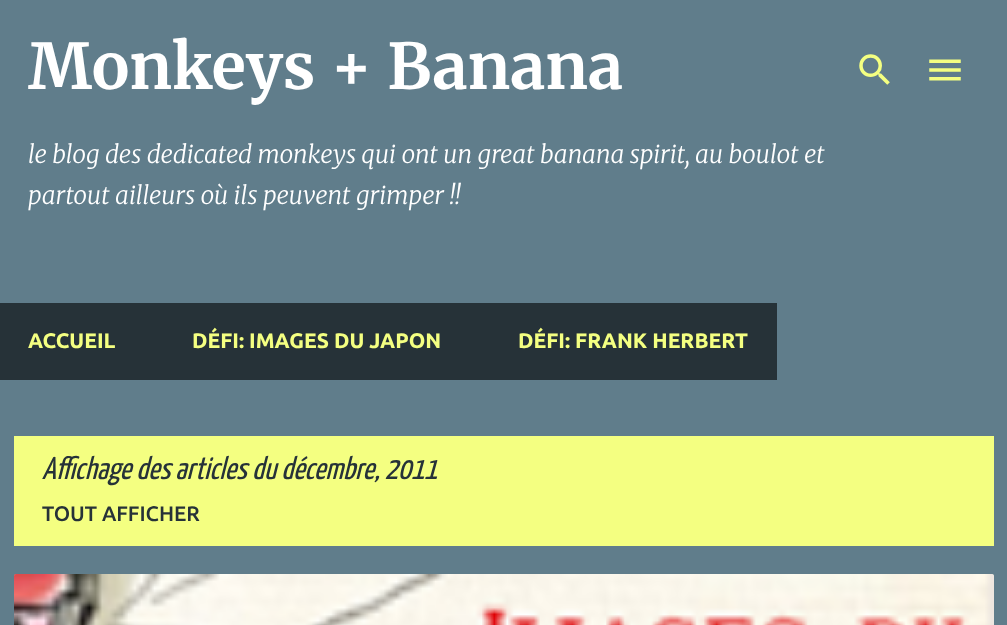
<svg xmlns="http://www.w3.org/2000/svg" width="1007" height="625">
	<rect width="100%" height="100%" fill="#607D8B" />
	<text x="28" y="89" font-family="Merriweather" font-size="63" font-weight="700" fill="#FFFFFF">Monkeys + Banana</text>
	<g font-family="Merriweather" font-size="24.5" font-weight="300" font-style="italic" fill="#FFFFFF">
		<text x="28" y="163">le blog des dedicated monkeys qui ont un great banana spirit, au boulot et</text>
		<text x="28" y="204">partout ailleurs où ils peuvent grimper !!</text>
	</g>
	<image x="859" y="54" width="31" height="31" href="assets/img1.png" />
	<image x="929" y="59" width="32" height="22" href="assets/img2.png" />
	<rect x="0" y="303" width="777" height="77" fill="#263238" />
	<g font-family="Ubuntu" font-size="21" font-weight="700" fill="#F4FF81">
		<text x="28" y="348">ACCUEIL</text>
		<text x="192" y="348">DÉFI: IMAGES DU JAPON</text>
		<text x="518" y="348">DÉFI: FRANK HERBERT</text>
	</g>
	<rect x="14" y="436" width="980" height="110" fill="#F4FF81" />
	<text x="42" y="479" font-family="Yanone Kaffeesatz" font-size="31.5" font-weight="200" font-style="italic" fill="#263238">Affichage des articles du décembre, 2011</text>
	<text x="42" y="521" font-family="Ubuntu" font-size="21" font-weight="500" fill="#263238">TOUT AFFICHER</text>
	<path d="M16 574H992C993 574 994 575 994 576V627H14V576C14 575 15 574 16 574Z" fill="#D9CDC7" />
	<image x="14" y="574" width="980" height="51" href="assets/img3.png" />
</svg>
